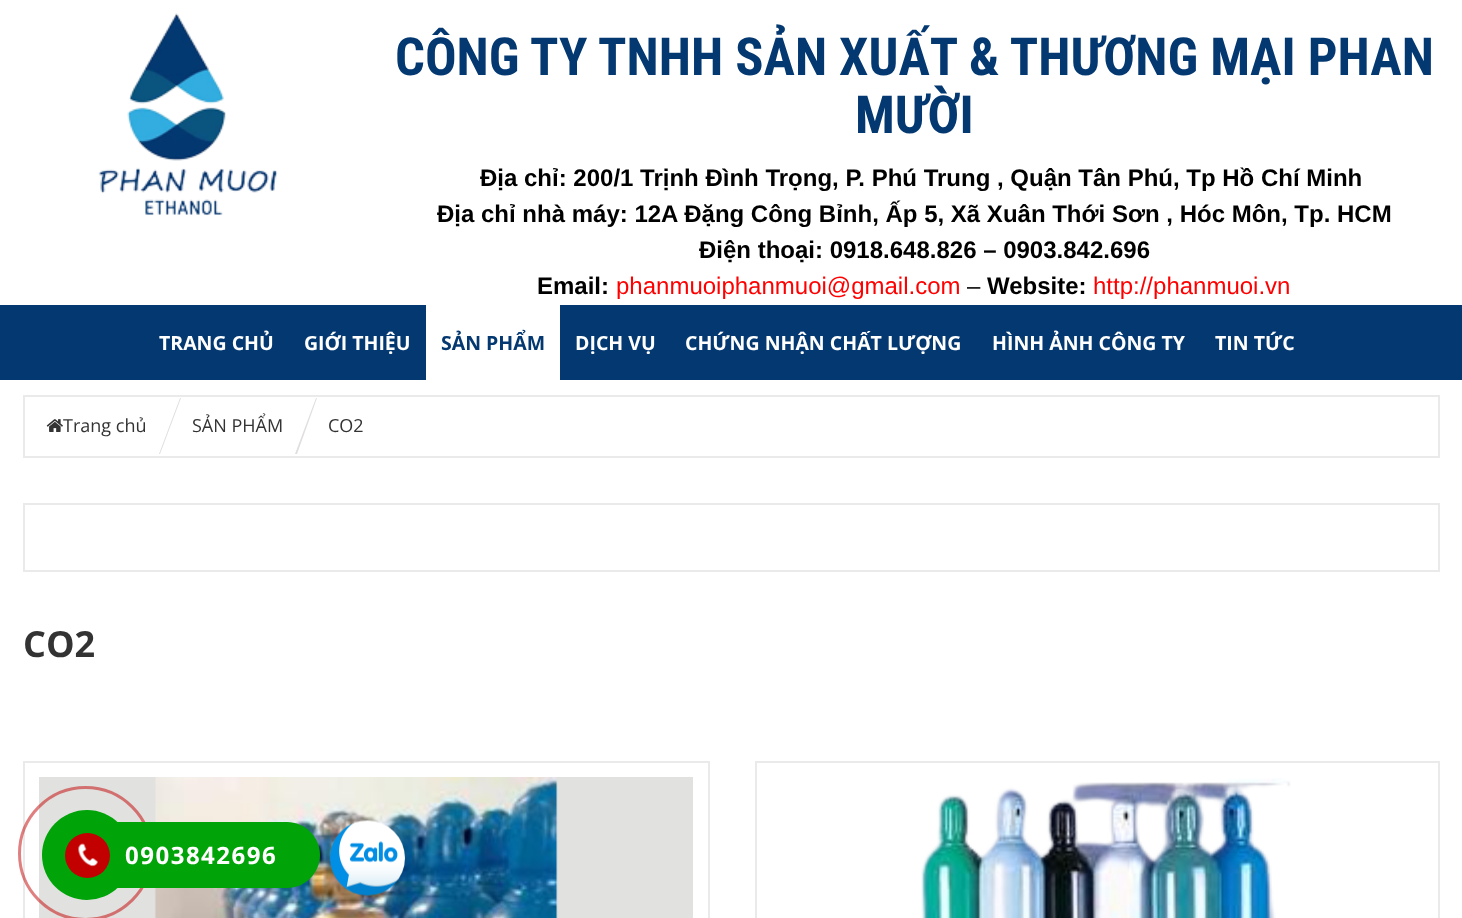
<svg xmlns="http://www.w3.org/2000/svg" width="1462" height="918">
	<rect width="100%" height="100%" fill="#FFFFFF" />
	<image x="98" y="13" width="180" height="203" href="assets/img1.png" />
	<g font-family="Roboto Condensed" font-size="52.5" font-weight="700" fill="#043871">
		<text x="395" y="75">CÔNG TY TNHH SẢN XUẤT &amp; THƯƠNG MẠI PHAN</text>
		<text x="855" y="133">MƯỜI</text>
	</g>
	<g font-family="Liberation Sans" font-size="24" font-weight="700" fill="#000000">
		<text x="480" y="186">Địa chỉ: 200/1 Trịnh Đình Trọng, P. Phú Trung , Quận Tân Phú, Tp Hồ Chí Minh</text>
		<text x="437" y="222">Địa chỉ nhà máy: 12A Đặng Công Bỉnh, Ấp 5, Xã Xuân Thới Sơn , Hóc Môn, Tp. HCM</text>
		<text x="699" y="258">Điện thoại: 0918.648.826 – 0903.842.696</text>
		<text x="537" y="294">Email:</text>
	</g>
	<text x="616" y="294" font-family="Liberation Sans" font-size="24" fill="#FF0000">phanmuoiphanmuoi@gmail.com</text>
	<text x="967" y="294" font-family="Liberation Sans" font-size="24" fill="#000000">–</text>
	<text x="987" y="294" font-family="Liberation Sans" font-size="24" font-weight="700" fill="#000000">Website:</text>
	<text x="1093" y="294" font-family="Liberation Sans" font-size="24" fill="#FF0000">http://phanmuoi.vn</text>
	<rect x="0" y="305" width="1462" height="75" fill="#043871" />
	<g font-family="Open Sans" font-size="19.5" font-weight="700" fill="#FFFFFF">
		<text x="159" y="350">TRANG CHỦ</text>
		<text x="304" y="350">GIỚI THIỆU</text>
	</g>
	<rect x="426" y="305" width="134" height="75" fill="#FFFFFF" />
	<text x="441" y="350" font-family="Open Sans" font-size="19.5" font-weight="700" fill="#043871">SẢN PHẨM</text>
	<g font-family="Open Sans" font-size="19.5" font-weight="700" fill="#FFFFFF">
		<text x="575" y="350">DỊCH VỤ</text>
		<text x="685" y="350">CHỨNG NHẬN CHẤT LƯỢNG</text>
		<text x="992" y="350">HÌNH ẢNH CÔNG TY</text>
		<text x="1215" y="350">TIN TỨC</text>
	</g>
	<rect x="24" y="396" width="1415" height="61" fill="none" stroke="#EAEAEA" stroke-width="2" />
	<image x="46" y="419" width="17" height="13" href="assets/img2.png" />
	<text x="63" y="432" font-family="Open Sans" font-size="18" fill="#333333">Trang chủ</text>
	<path d="M180 398H181L160 454H159Z" fill="#E0DEDE" />
	<text x="192" y="432" font-family="Open Sans" font-size="18" fill="#333333">SẢN PHẨM</text>
	<path d="M316 398H317L297 454H295Z" fill="#E0DEDE" />
	<text x="328" y="432" font-family="Open Sans" font-size="18" fill="#333333">CO2</text>
	<rect x="24" y="504" width="1415" height="67" fill="none" stroke="#EAEAEA" stroke-width="2" />
	<text x="23" y="657" font-family="Open Sans" font-size="36" font-weight="700" fill="#333333">CO2</text>
	<rect x="24" y="762" width="685" height="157" fill="none" stroke="#EAEAEA" stroke-width="2" />
	<image x="39" y="777" width="654" height="141" href="assets/img3.png" />
	<rect x="756" y="762" width="683" height="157" fill="none" stroke="#EAEAEA" stroke-width="2" />
	<image x="921" y="778" width="370" height="140" href="assets/img4.png" />
	<circle cx="85.5" cy="853.5" r="66" fill="none" stroke="#C20000" stroke-opacity="0.5" stroke-width="3" />
	<circle cx="87" cy="855" r="45" fill="#00A308" />
	<circle cx="87.5" cy="855.5" r="22.5" fill="#C20000" />
	<image x="78" y="843" width="20" height="24" href="assets/img5.png" />
	<path d="M117 822H287C305 822 320 837 320 855C320 873 305 888 287 888H117Z" fill="#00A308" />
	<text x="125" y="864" font-family="Open Sans" font-size="24" font-weight="700" letter-spacing="1.5" fill="#FFFFFF">0903842696</text>
	<image x="330" y="820" width="75" height="76" href="assets/img6.png" />
</svg>
